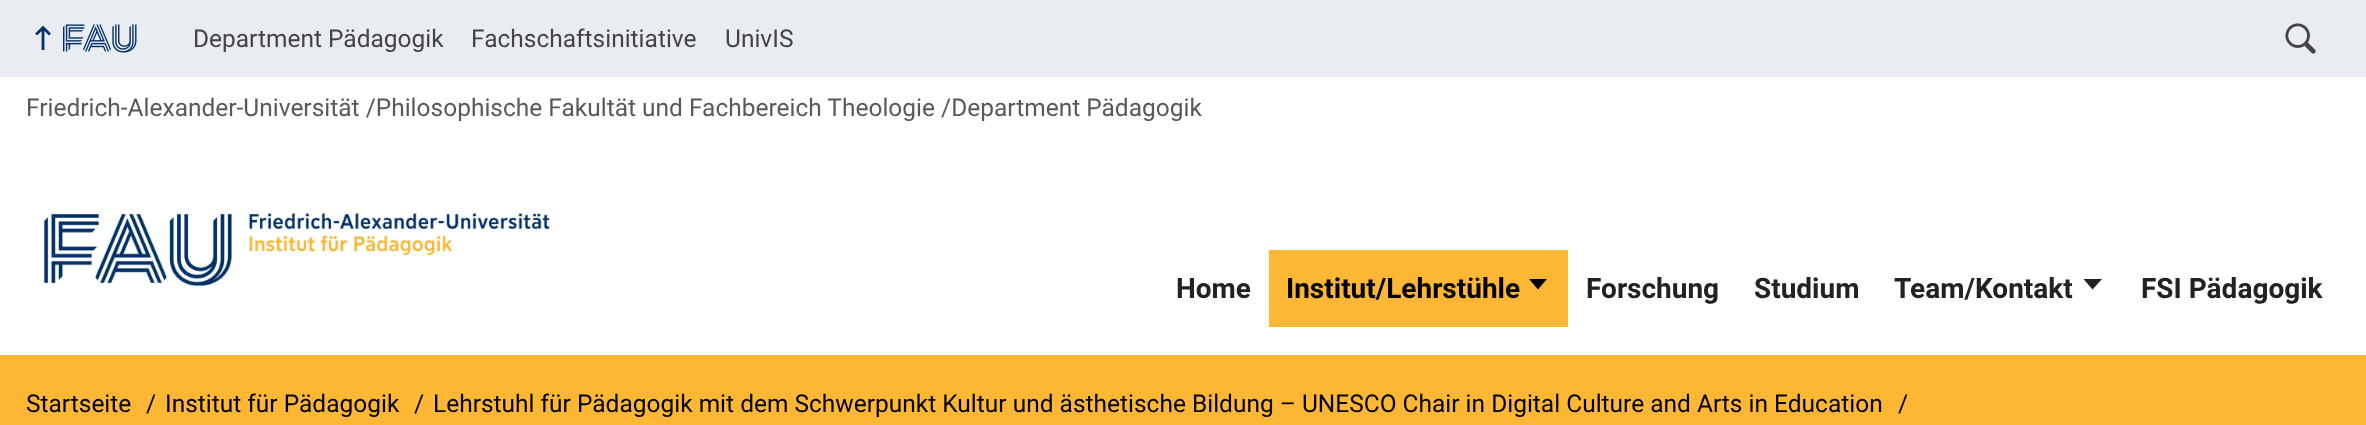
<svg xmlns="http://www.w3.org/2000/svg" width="2366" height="425">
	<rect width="100%" height="100%" fill="#FFFFFF" />
	<rect x="0" y="0" width="2366" height="77" fill="#E9EDF2" />
	<image x="35" y="25" width="16" height="25" href="assets/img1.png" />
	<image x="63" y="24" width="74" height="29" href="assets/img2.png" />
	<g font-family="Roboto" font-size="24.5" fill="#444444">
		<text x="193" y="47">Department Pädagogik</text>
		<text x="471" y="47">Fachschaftsinitiative</text>
		<text x="725" y="47">UnivIS</text>
	</g>
	<image x="2285" y="23" width="31" height="31" href="assets/img3.png" />
	<text x="26" y="116" font-family="Roboto" font-size="24.5" fill="#5B5858">Friedrich-Alexander-Universität /Philosophische Fakultät und Fachbereich Theologie /Department Pädagogik</text>
	<image x="43" y="212" width="508" height="75" href="assets/img4.png" />
	<text x="1176" y="298" font-family="Roboto" font-size="28" font-weight="700" fill="#222222">Home</text>
	<rect x="1269" y="250" width="299" height="77" fill="#FDB735" />
	<text x="1286" y="298" font-family="Roboto" font-size="28" font-weight="700" fill="#000000">Institut/Lehrstühle</text>
	<path d="M1529 279L1538 289.5L1547 279Z" fill="#000000" />
	<g font-family="Roboto" font-size="28" font-weight="700" fill="#222222">
		<text x="1586" y="298">Forschung</text>
		<text x="1754" y="298">Studium</text>
		<text x="1894" y="298">Team/Kontakt</text>
	</g>
	<path d="M2083.5 279L2092.5 289.5L2102 279Z" fill="#222222" />
	<text x="2141" y="298" font-family="Roboto" font-size="28" font-weight="700" fill="#222222">FSI Pädagogik</text>
	<rect x="0" y="355" width="2366" height="70" fill="#FDB735" />
	<g font-family="Roboto" font-size="24.5" fill="#000000">
		<text x="26" y="412">Startseite</text>
		<text x="146" y="412">/</text>
		<text x="165" y="412">Institut für Pädagogik</text>
		<text x="414" y="412">/</text>
		<text x="433" y="412">Lehrstuhl für Pädagogik mit dem Schwerpunkt Kultur und ästhetische Bildung – UNESCO Chair in Digital Culture and Arts in Education</text>
		<text x="1898" y="412">/</text>
	</g>
</svg>
